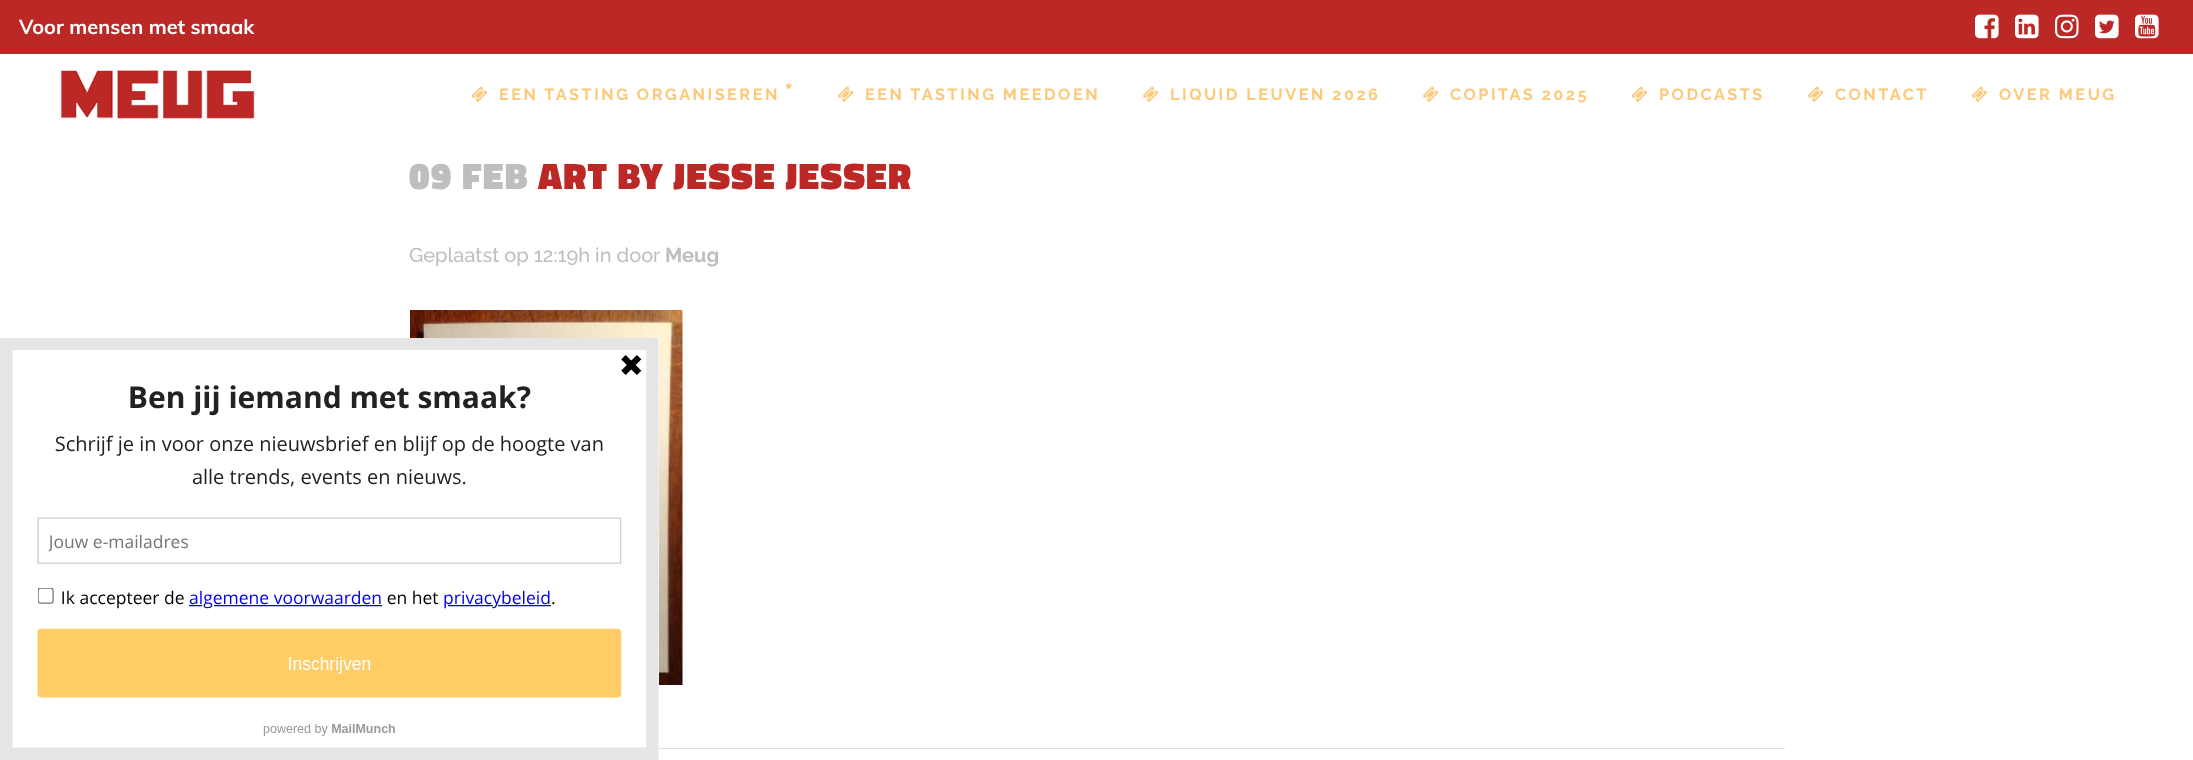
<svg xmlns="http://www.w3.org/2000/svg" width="2193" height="760">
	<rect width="100%" height="100%" fill="#FFFFFF" />
	<rect x="0" y="0" width="2193" height="54" fill="#BB2826" />
	<text x="19" y="34" font-family="Muli" font-size="20" font-weight="700" fill="#FFFFFF">Voor mensen met smaak</text>
	<image x="1975" y="14" width="24" height="25" href="assets/img1.png" />
	<image x="2015" y="14" width="24" height="25" href="assets/img2.png" />
	<image x="2055" y="14" width="24" height="25" href="assets/img3.png" />
	<image x="2095" y="14" width="24" height="25" href="assets/img4.png" />
	<image x="2135" y="14" width="24" height="25" href="assets/img5.png" />
	<image x="61" y="70" width="194" height="49" href="assets/img6.png" />
	<image x="471" y="86" width="16" height="16" href="assets/img7.png" />
	<text x="499" y="100" font-family="Raleway" font-size="16.25" font-weight="700" letter-spacing="2.5" fill="#FBC978">EEN TASTING ORGANISEREN</text>
	<image x="785" y="82" width="8" height="8" href="assets/img8.png" />
	<image x="838" y="86" width="16" height="16" href="assets/img9.png" />
	<text x="865" y="100" font-family="Raleway" font-size="16.25" font-weight="700" letter-spacing="2.5" fill="#FBC978">EEN TASTING MEEDOEN</text>
	<image x="1143" y="86" width="16" height="16" href="assets/img9.png" />
	<text x="1170" y="100" font-family="Raleway" font-size="16.25" font-weight="700" letter-spacing="2.5" fill="#FBC978">LIQUID LEUVEN 2026</text>
	<image x="1423" y="86" width="16" height="16" href="assets/img9.png" />
	<text x="1450" y="100" font-family="Raleway" font-size="16.25" font-weight="700" letter-spacing="2.5" fill="#FBC978">COPITAS 2025</text>
	<image x="1631" y="86" width="16" height="16" href="assets/img7.png" />
	<text x="1659" y="100" font-family="Raleway" font-size="16.25" font-weight="700" letter-spacing="2.5" fill="#FBC978">PODCASTS</text>
	<image x="1808" y="86" width="16" height="16" href="assets/img9.png" />
	<text x="1835" y="100" font-family="Raleway" font-size="16.25" font-weight="700" letter-spacing="2.5" fill="#FBC978">CONTACT</text>
	<image x="1971" y="86" width="16" height="16" href="assets/img7.png" />
	<text x="1999" y="100" font-family="Raleway" font-size="16.25" font-weight="700" letter-spacing="2.5" fill="#FBC978">OVER MEUG</text>
	<text x="409" y="189" font-family="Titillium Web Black" font-size="37.5" font-weight="900" letter-spacing="1.25" fill="#BEBEBE">09 FEB</text>
	<text x="538" y="189" font-family="Titillium Web Black" font-size="37.5" font-weight="900" letter-spacing="1.25" fill="#BB2826">ART BY JESSE JESSER</text>
	<text x="409" y="262" font-family="Raleway" font-size="20" font-weight="500" fill="#BEBEBE">Geplaatst op 12:19h in door</text>
	<text x="665" y="262" font-family="Raleway" font-size="20" font-weight="700" fill="#BEBEBE">Meug</text>
	<image x="410" y="310" width="273" height="375" href="assets/img10.png" />
	<rect x="659" y="748" width="1126" height="1" fill="#E0E0E0" />
	<image x="0" y="338" width="659" height="422" href="assets/img11.png" />
</svg>
